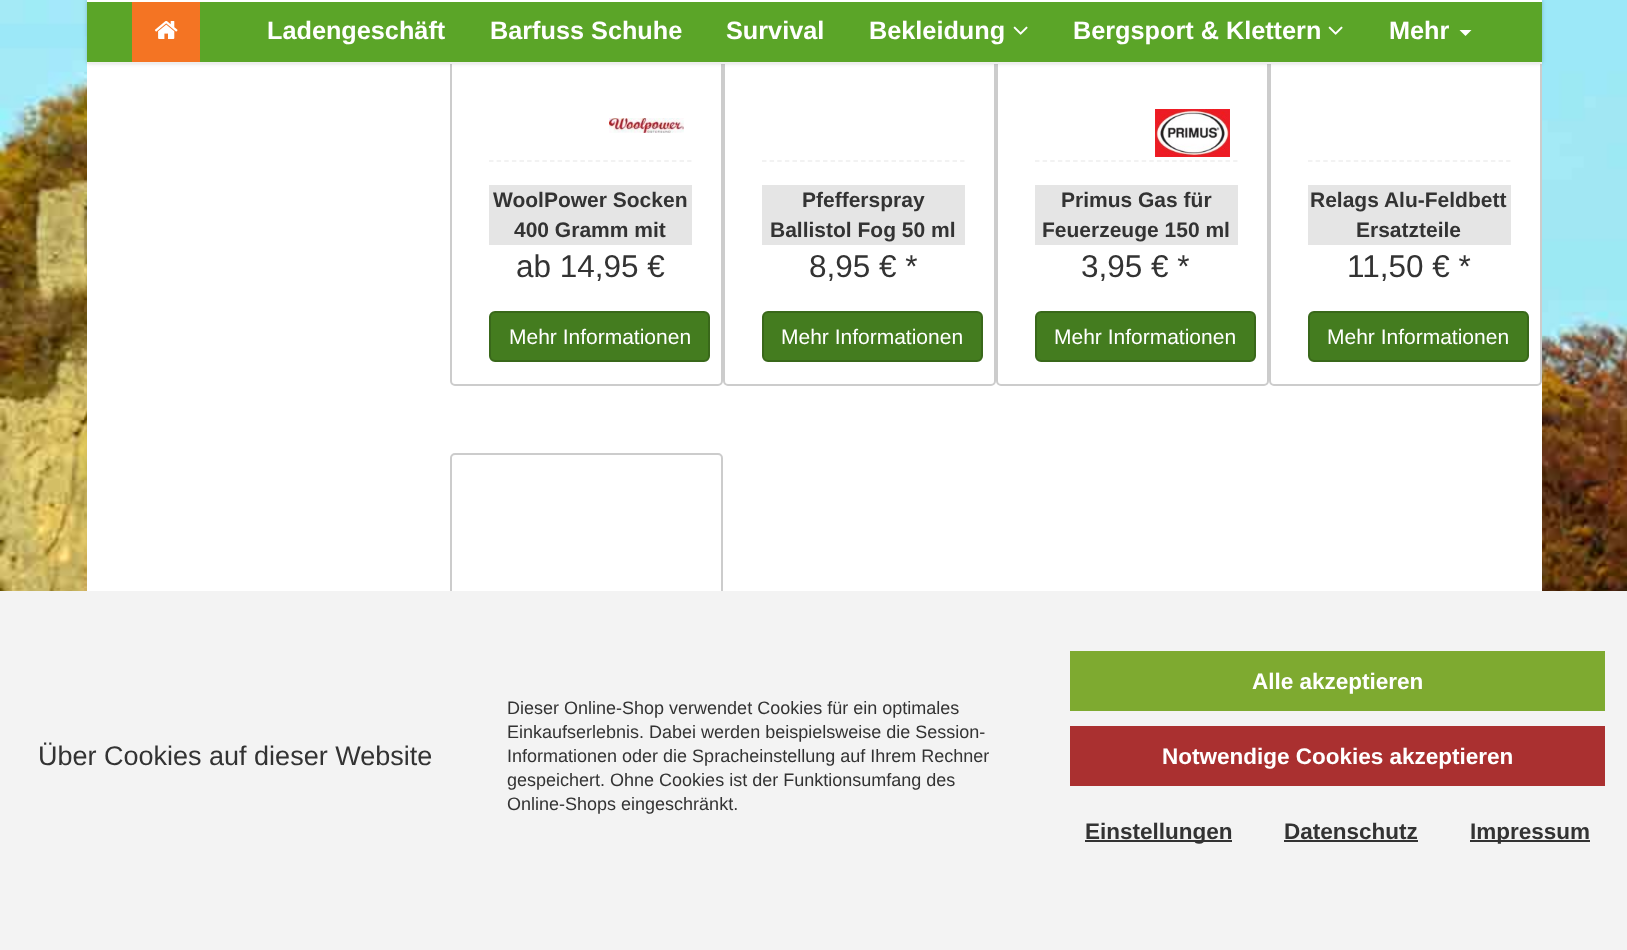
<svg xmlns="http://www.w3.org/2000/svg" width="1627" height="950">
	<rect width="100%" height="100%" fill="#FFFFFF" />
	<image x="0" y="0" width="1627" height="591" href="assets/img1.png" />
	<rect x="87" y="64" width="1455" height="527" fill="#FFFFFF" />
	<rect x="451" y="-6" width="271" height="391" rx="4" fill="none" stroke="#CCCCCC" stroke-width="2" />
	<rect x="724" y="-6" width="271" height="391" rx="4" fill="none" stroke="#CCCCCC" stroke-width="2" />
	<rect x="997" y="-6" width="271" height="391" rx="4" fill="none" stroke="#CCCCCC" stroke-width="2" />
	<rect x="1270" y="-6" width="271" height="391" rx="4" fill="none" stroke="#CCCCCC" stroke-width="2" />
	<rect x="87" y="0" width="1455" height="63" fill="#000000" fill-opacity="0.2" filter="blur(2px)" />
	<rect x="87" y="2" width="1455" height="60" fill="#5BA528" />
	<rect x="87" y="0" width="1455" height="2" fill="#FFFFFF" />
	<rect x="87" y="62" width="1455" height="2" fill="#EEEEEE" />
	<rect x="132" y="2" width="68" height="60" fill="#F47423" />
	<image x="154" y="21" width="24" height="18" href="assets/img2.png" />
	<g font-family="Liberation Sans" font-size="25.25" font-weight="700" fill="#FFFFFF">
		<text x="267" y="39">Ladengeschäft</text>
		<text x="490" y="39">Barfuss Schuhe</text>
		<text x="726" y="39">Survival</text>
		<text x="869" y="39">Bekleidung</text>
	</g>
	<image x="1013" y="26" width="15" height="9" href="assets/img3.png" />
	<text x="1073" y="39" font-family="Liberation Sans" font-size="25.25" font-weight="700" fill="#FFFFFF">Bergsport &amp; Klettern</text>
	<image x="1328" y="26" width="15" height="9" href="assets/img3.png" />
	<text x="1389" y="39" font-family="Liberation Sans" font-size="25.25" font-weight="700" fill="#FFFFFF">Mehr</text>
	<path d="M1459.5 30H1471.5L1465.5 36Z" fill="#FFFFFF" />
	<image x="609" y="118" width="75" height="15" href="assets/img4.png" />
	<path d="M489 161H691.5" fill="none" stroke="#EEEEEE" stroke-width="1.5" stroke-dasharray="4.5 3.12" />
	<rect x="489" y="185" width="203" height="60" fill="#E5E5E5" />
	<g font-family="Liberation Sans" font-size="21" font-weight="700" fill="#333333">
		<text x="493" y="207">WoolPower Socken</text>
		<text x="514" y="237">400 Gramm mit</text>
	</g>
	<text x="516" y="277" font-family="Liberation Sans" font-size="31.5" fill="#333333">ab 14,95 €</text>
	<rect x="490" y="312" width="219" height="49" rx="5" fill="#447C1F" stroke="#39681A" stroke-width="2" />
	<text x="509" y="344" font-family="Liberation Sans" font-size="21" fill="#FFFFFF">Mehr Informationen</text>
	<path d="M762 161H964.5" fill="none" stroke="#EEEEEE" stroke-width="1.5" stroke-dasharray="4.5 3.12" />
	<rect x="762" y="185" width="203" height="60" fill="#E5E5E5" />
	<g font-family="Liberation Sans" font-size="21" font-weight="700" fill="#333333">
		<text x="802" y="207">Pfefferspray</text>
		<text x="770" y="237">Ballistol Fog 50 ml</text>
	</g>
	<text x="809" y="277" font-family="Liberation Sans" font-size="31.5" fill="#333333">8,95 € *</text>
	<rect x="763" y="312" width="219" height="49" rx="5" fill="#447C1F" stroke="#39681A" stroke-width="2" />
	<text x="781" y="344" font-family="Liberation Sans" font-size="21" fill="#FFFFFF">Mehr Informationen</text>
	<image x="1155" y="109" width="75" height="48" href="assets/img5.png" />
	<path d="M1035 161H1237.5" fill="none" stroke="#EEEEEE" stroke-width="1.5" stroke-dasharray="4.5 3.12" />
	<rect x="1035" y="185" width="203" height="60" fill="#E5E5E5" />
	<g font-family="Liberation Sans" font-size="21" font-weight="700" fill="#333333">
		<text x="1061" y="207">Primus Gas für</text>
		<text x="1042" y="237">Feuerzeuge 150 ml</text>
	</g>
	<text x="1081" y="277" font-family="Liberation Sans" font-size="31.5" fill="#333333">3,95 € *</text>
	<rect x="1036" y="312" width="219" height="49" rx="5" fill="#447C1F" stroke="#39681A" stroke-width="2" />
	<text x="1054" y="344" font-family="Liberation Sans" font-size="21" fill="#FFFFFF">Mehr Informationen</text>
	<path d="M1308 161H1510.5" fill="none" stroke="#EEEEEE" stroke-width="1.5" stroke-dasharray="4.5 3.12" />
	<rect x="1308" y="185" width="203" height="60" fill="#E5E5E5" />
	<g font-family="Liberation Sans" font-size="21" font-weight="700" fill="#333333">
		<text x="1310" y="207">Relags Alu-Feldbett</text>
		<text x="1356" y="237">Ersatzteile</text>
	</g>
	<text x="1347" y="277" font-family="Liberation Sans" font-size="31.5" fill="#333333">11,50 € *</text>
	<rect x="1309" y="312" width="219" height="49" rx="5" fill="#447C1F" stroke="#39681A" stroke-width="2" />
	<text x="1327" y="344" font-family="Liberation Sans" font-size="21" fill="#FFFFFF">Mehr Informationen</text>
	<rect x="451" y="454" width="271" height="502" rx="4" fill="none" stroke="#CCCCCC" stroke-width="2" />
	<rect x="0" y="591" width="1627" height="359" fill="#F3F3F3" />
	<text x="38" y="765" font-family="Liberation Sans" font-size="27" fill="#333333">Über Cookies auf dieser Website</text>
	<g font-family="Liberation Sans" font-size="18" fill="#333333">
		<text x="507" y="714">Dieser Online-Shop verwendet Cookies für ein optimales</text>
		<text x="507" y="738">Einkaufserlebnis. Dabei werden beispielsweise die Session-</text>
		<text x="507" y="762">Informationen oder die Spracheinstellung auf Ihrem Rechner</text>
		<text x="507" y="786">gespeichert. Ohne Cookies ist der Funktionsumfang des</text>
		<text x="507" y="810">Online-Shops eingeschränkt.</text>
	</g>
	<rect x="1070" y="651" width="535" height="60" fill="#7EAA30" />
	<text x="1252" y="689" font-family="Liberation Sans" font-size="22.5" font-weight="700" fill="#FFFFFF">Alle akzeptieren</text>
	<rect x="1070" y="726" width="535" height="60" fill="#AA3030" />
	<text x="1162" y="764" font-family="Liberation Sans" font-size="22.5" font-weight="700" fill="#FFFFFF">Notwendige Cookies akzeptieren</text>
	<rect x="1085" y="840" width="147" height="2" fill="#333333" />
	<g font-family="Liberation Sans" font-size="22.5" font-weight="700" fill="#333333">
		<text x="1085" y="839">Einstellungen</text>
		<text x="1284" y="839">Datenschutz</text>
	</g>
	<rect x="1284" y="840" width="134" height="2" fill="#333333" />
	<rect x="1470" y="840" width="120" height="2" fill="#333333" />
	<text x="1470" y="839" font-family="Liberation Sans" font-size="22.5" font-weight="700" fill="#333333">Impressum</text>
</svg>
